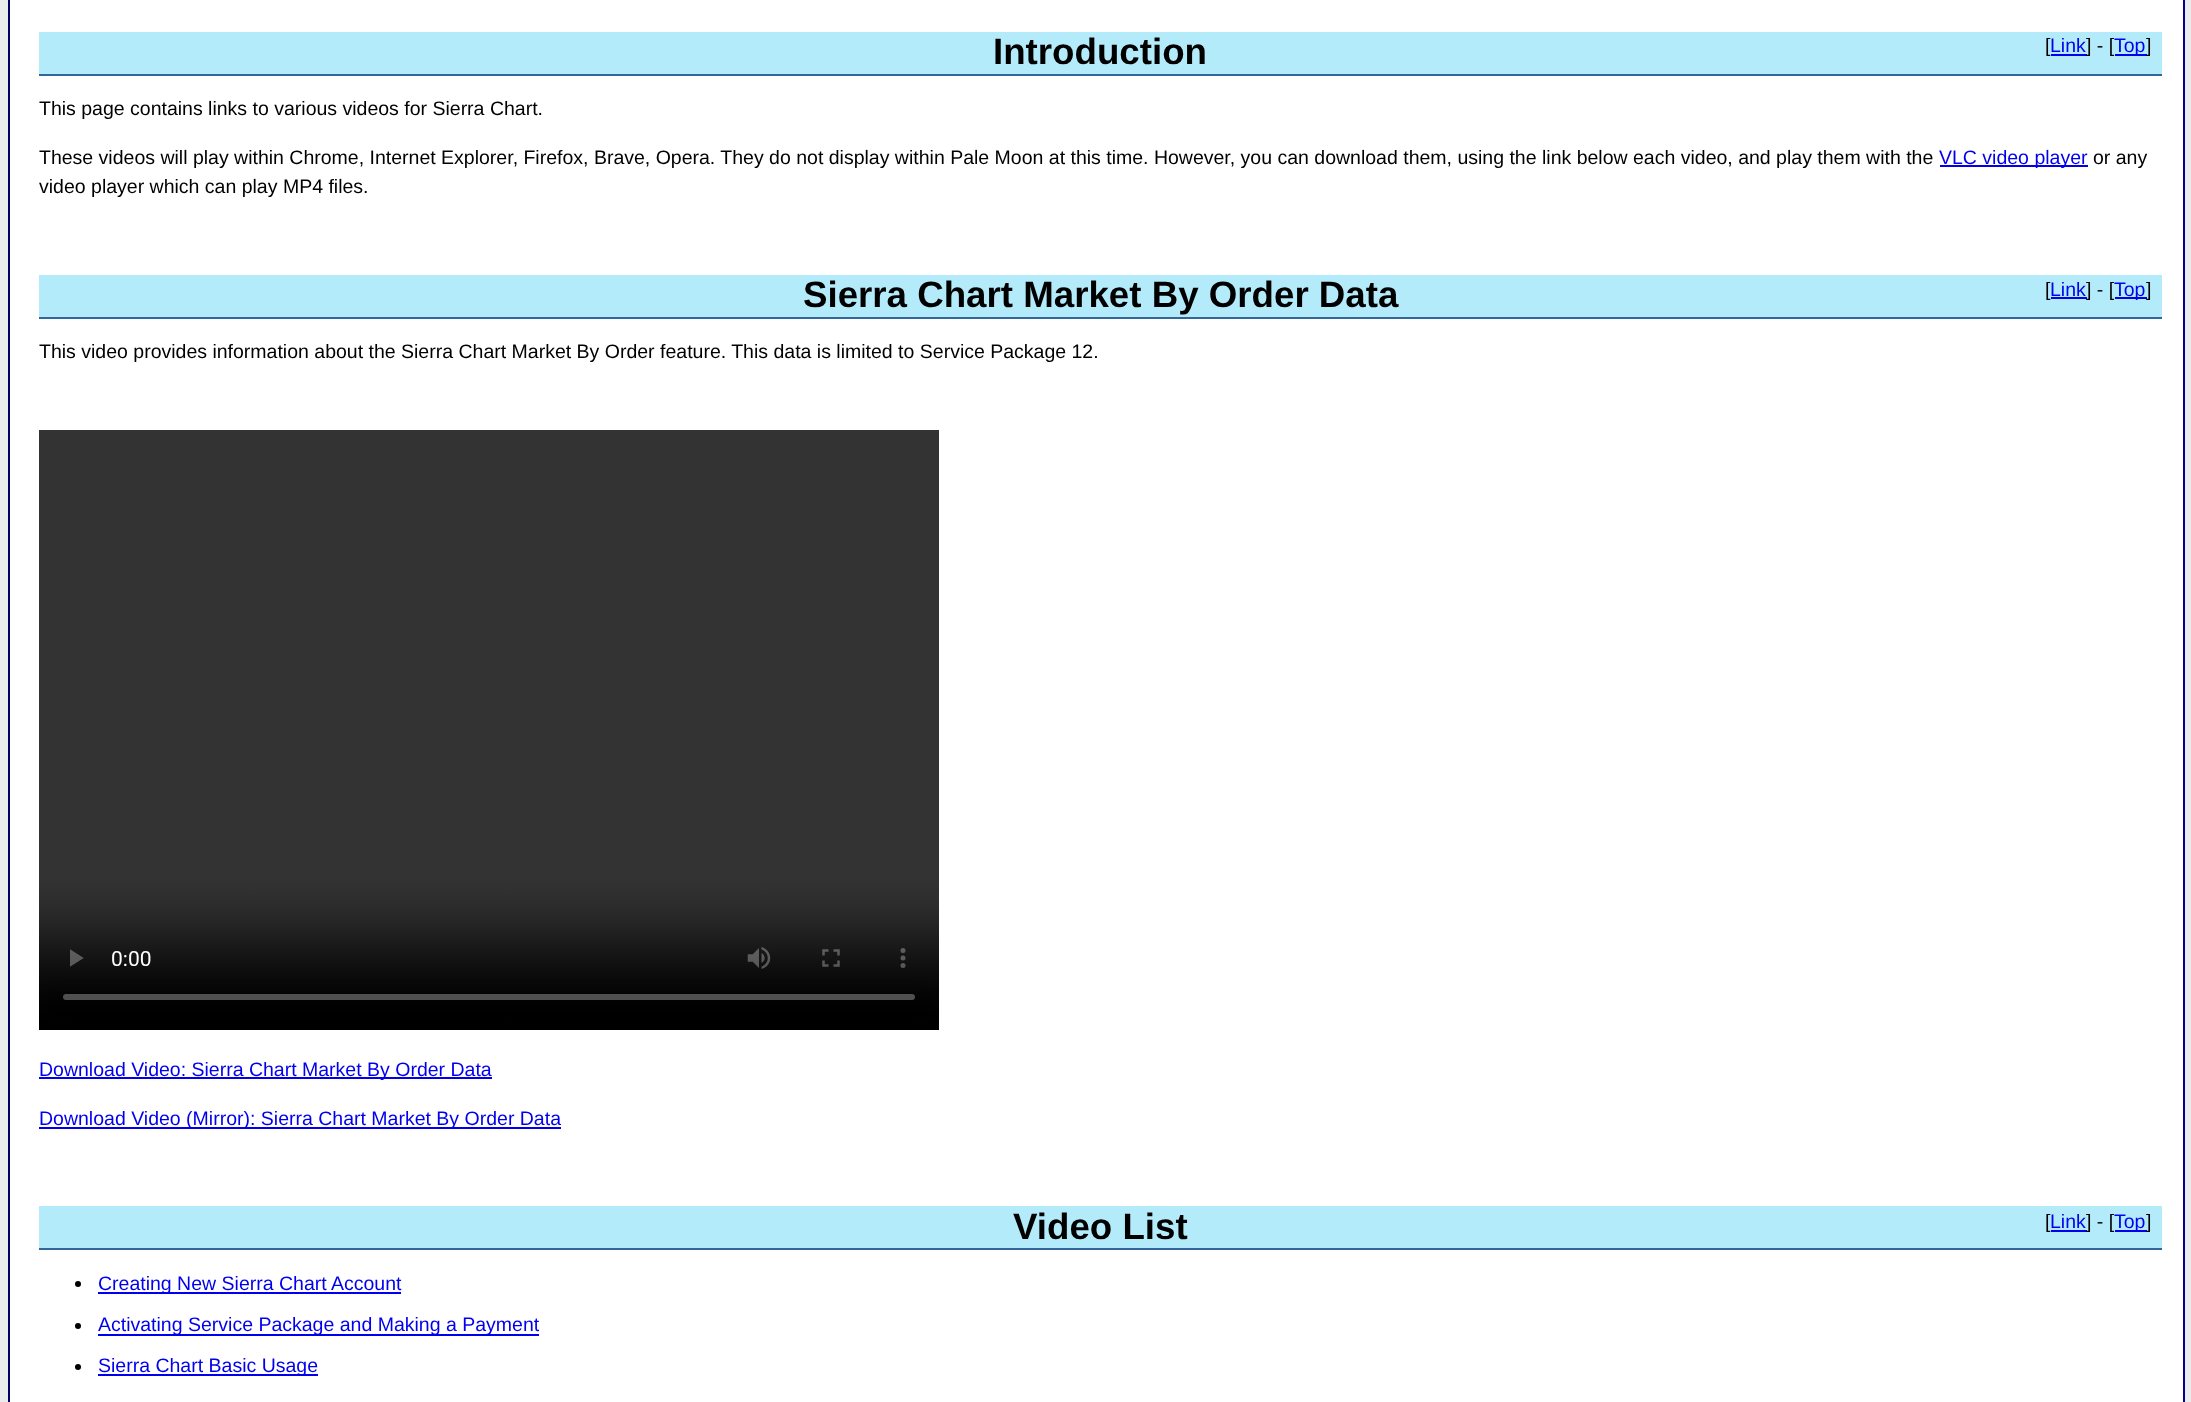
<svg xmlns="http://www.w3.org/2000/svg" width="2191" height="1402">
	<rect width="100%" height="100%" fill="#EBEDEC" />
	<rect x="10" y="0" width="2173" height="1402" fill="#FFFFFF" />
	<rect x="2183" y="0" width="2" height="1402" fill="#000099" />
	<rect x="8" y="0" width="2" height="1402" fill="#000066" />
	<rect x="39" y="32" width="2123" height="42" fill="#B4EBFB" />
	<rect x="39" y="74" width="2123" height="2" fill="#336699" />
	<text x="993" y="64" font-family="Liberation Sans" font-size="36.7" font-weight="700" fill="#000000">Introduction</text>
	<text x="2045" y="52" font-family="Liberation Sans" font-size="19.5" fill="#000000">[</text>
	<text x="2050" y="52" font-family="Liberation Sans" font-size="19.5" fill="#0000EE">Link</text>
	<rect x="2051" y="54" width="36" height="2" fill="#0000EE" />
	<text x="2086" y="52" font-family="Liberation Sans" font-size="19.5" fill="#000000">] - [</text>
	<rect x="2115" y="54" width="32" height="2" fill="#0000EE" />
	<text x="2114" y="52" font-family="Liberation Sans" font-size="19.5" fill="#0000EE">Top</text>
	<g font-family="Liberation Sans" font-size="19.5" fill="#000000">
		<text x="2146" y="52">]</text>
		<text x="39" y="115">This page contains links to various videos for Sierra Chart.</text>
		<text x="39" y="164">These videos will play within Chrome, Internet Explorer, Firefox, Brave, Opera. They do not display within Pale Moon at this time. However, you can download them, using the link below each video, and play them with the</text>
	</g>
	<rect x="1940" y="165" width="148" height="2" fill="#0000EE" />
	<text x="1939" y="164" font-family="Liberation Sans" font-size="19.5" fill="#0000EE">VLC video player</text>
	<g font-family="Liberation Sans" font-size="19.5" fill="#000000">
		<text x="2093" y="164">or any</text>
		<text x="39" y="193">video player which can play MP4 files.</text>
	</g>
	<rect x="39" y="275" width="2123" height="42" fill="#B4EBFB" />
	<rect x="39" y="317" width="2123" height="2" fill="#336699" />
	<text x="803" y="307" font-family="Liberation Sans" font-size="36.7" font-weight="700" fill="#000000">Sierra Chart Market By Order Data</text>
	<text x="2045" y="296" font-family="Liberation Sans" font-size="19.5" fill="#000000">[</text>
	<text x="2050" y="296" font-family="Liberation Sans" font-size="19.5" fill="#0000EE">Link</text>
	<rect x="2051" y="297" width="36" height="2" fill="#0000EE" />
	<text x="2086" y="296" font-family="Liberation Sans" font-size="19.5" fill="#000000">] - [</text>
	<rect x="2115" y="297" width="32" height="2" fill="#0000EE" />
	<text x="2114" y="296" font-family="Liberation Sans" font-size="19.5" fill="#0000EE">Top</text>
	<g font-family="Liberation Sans" font-size="19.5" fill="#000000">
		<text x="2146" y="296">]</text>
		<text x="39" y="358">This video provides information about the Sierra Chart Market By Order feature. This data is limited to Service Package 12.</text>
	</g>
	<image x="39" y="430" width="900" height="600" href="assets/img1.png" />
	<rect x="39" y="1077" width="453" height="2" fill="#0000EE" />
	<text x="39" y="1076" font-family="Liberation Sans" font-size="19.5" fill="#0000EE">Download Video: Sierra Chart Market By Order Data</text>
	<rect x="39" y="1127" width="522" height="2" fill="#0000EE" />
	<text x="39" y="1125" font-family="Liberation Sans" font-size="19.5" fill="#0000EE">Download Video (Mirror): Sierra Chart Market By Order Data</text>
	<rect x="39" y="1206" width="2123" height="42" fill="#B4EBFB" />
	<rect x="39" y="1248" width="2123" height="2" fill="#336699" />
	<text x="1013" y="1239" font-family="Liberation Sans" font-size="36.7" font-weight="700" fill="#000000">Video List</text>
	<text x="2045" y="1228" font-family="Liberation Sans" font-size="19.5" fill="#000000">[</text>
	<text x="2050" y="1228" font-family="Liberation Sans" font-size="19.5" fill="#0000EE">Link</text>
	<rect x="2051" y="1230" width="36" height="2" fill="#0000EE" />
	<text x="2086" y="1228" font-family="Liberation Sans" font-size="19.5" fill="#000000">] - [</text>
	<rect x="2115" y="1230" width="32" height="2" fill="#0000EE" />
	<text x="2114" y="1228" font-family="Liberation Sans" font-size="19.5" fill="#0000EE">Top</text>
	<text x="2146" y="1228" font-family="Liberation Sans" font-size="19.5" fill="#000000">]</text>
	<circle cx="78" cy="1284" r="3" fill="#000000" />
	<rect x="98" y="1292" width="303" height="2" fill="#0000EE" />
	<text x="98" y="1290" font-family="Liberation Sans" font-size="19.5" fill="#0000EE">Creating New Sierra Chart Account</text>
	<circle cx="78" cy="1326" r="3" fill="#000000" />
	<rect x="98" y="1334" width="441" height="2" fill="#0000EE" />
	<text x="98" y="1331" font-family="Liberation Sans" font-size="19.5" fill="#0000EE">Activating Service Package and Making a Payment</text>
	<circle cx="78" cy="1367" r="3" fill="#000000" />
	<rect x="98" y="1374" width="220" height="2" fill="#0000EE" />
	<text x="98" y="1372" font-family="Liberation Sans" font-size="19.5" fill="#0000EE">Sierra Chart Basic Usage</text>
</svg>
